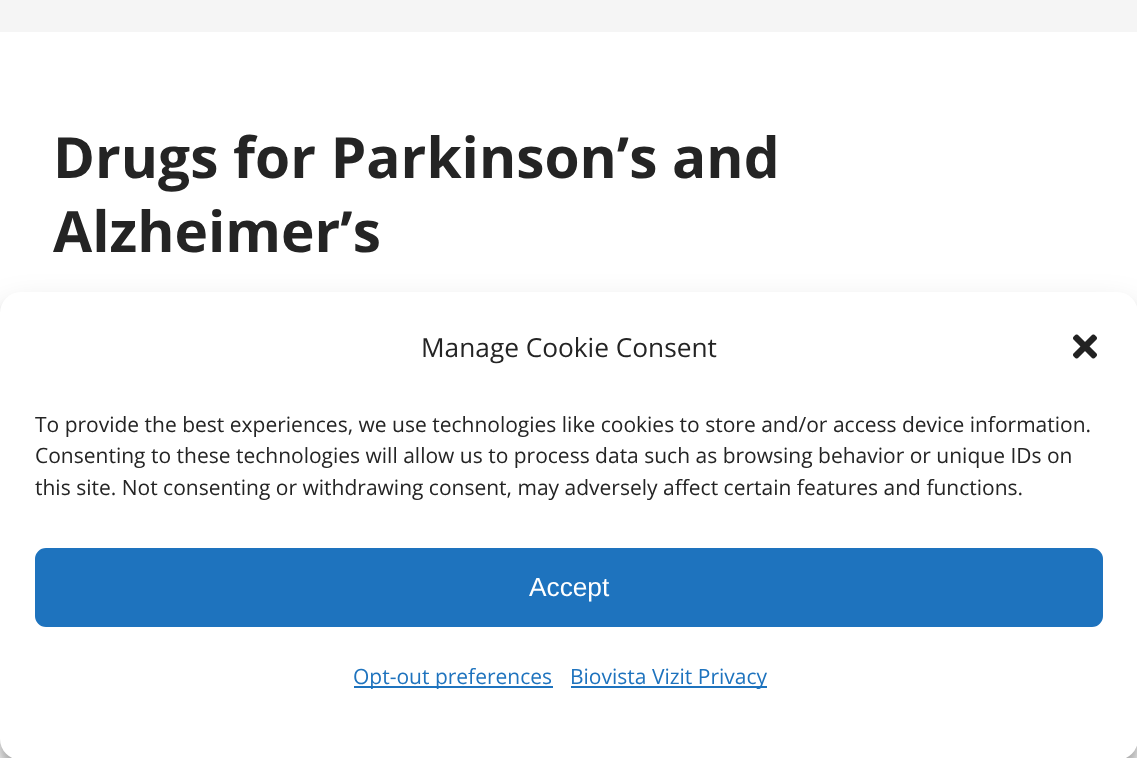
<svg xmlns="http://www.w3.org/2000/svg" width="1137" height="758">
	<rect width="100%" height="100%" fill="#FFFFFF" />
	<rect x="0" y="0" width="1137" height="32" fill="#F5F5F5" />
	<g font-family="Open Sans" font-size="56.75" font-weight="700" fill="#242424">
		<text x="53" y="178">Drugs for Parkinson’s and</text>
		<text x="53" y="252">Alzheimer’s</text>
	</g>
	<rect x="0" y="303" width="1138" height="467" rx="21" fill="#000000" fill-opacity="0.23" filter="blur(5px)" />
	<rect x="0" y="310" width="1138" height="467" rx="21" fill="#000000" fill-opacity="0.19" filter="blur(17.5px)" />
	<rect x="0" y="292" width="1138" height="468" rx="21" fill="#FFFFFF" />
	<text x="421" y="357" font-family="Open Sans" font-size="26.25" fill="#242424">Manage Cookie Consent</text>
	<image x="1073" y="334" width="24" height="25" href="assets/img1.png" />
	<g font-family="Open Sans" font-size="21" fill="#242424">
		<text x="35" y="432">To provide the best experiences, we use technologies like cookies to store and/or access device information.</text>
		<text x="35" y="463">Consenting to these technologies will allow us to process data such as browsing behavior or unique IDs on</text>
		<text x="35" y="495">this site. Not consenting or withdrawing consent, may adversely affect certain features and functions.</text>
	</g>
	<rect x="36" y="549" width="1066" height="77" rx="10" fill="#1E73BE" stroke="#1E73BE" stroke-width="2" />
	<text x="529" y="596" font-family="Liberation Sans" font-size="26.25" fill="#FFFFFF">Accept</text>
	<rect x="354" y="686" width="199" height="2" fill="#1E73BE" />
	<text x="353" y="684" font-family="Open Sans" font-size="21" fill="#1E73BE">Opt-out preferences</text>
	<rect x="571" y="686" width="196" height="2" fill="#1E73BE" />
	<text x="570" y="684" font-family="Open Sans" font-size="21" fill="#1E73BE">Biovista Vizit Privacy</text>
</svg>
